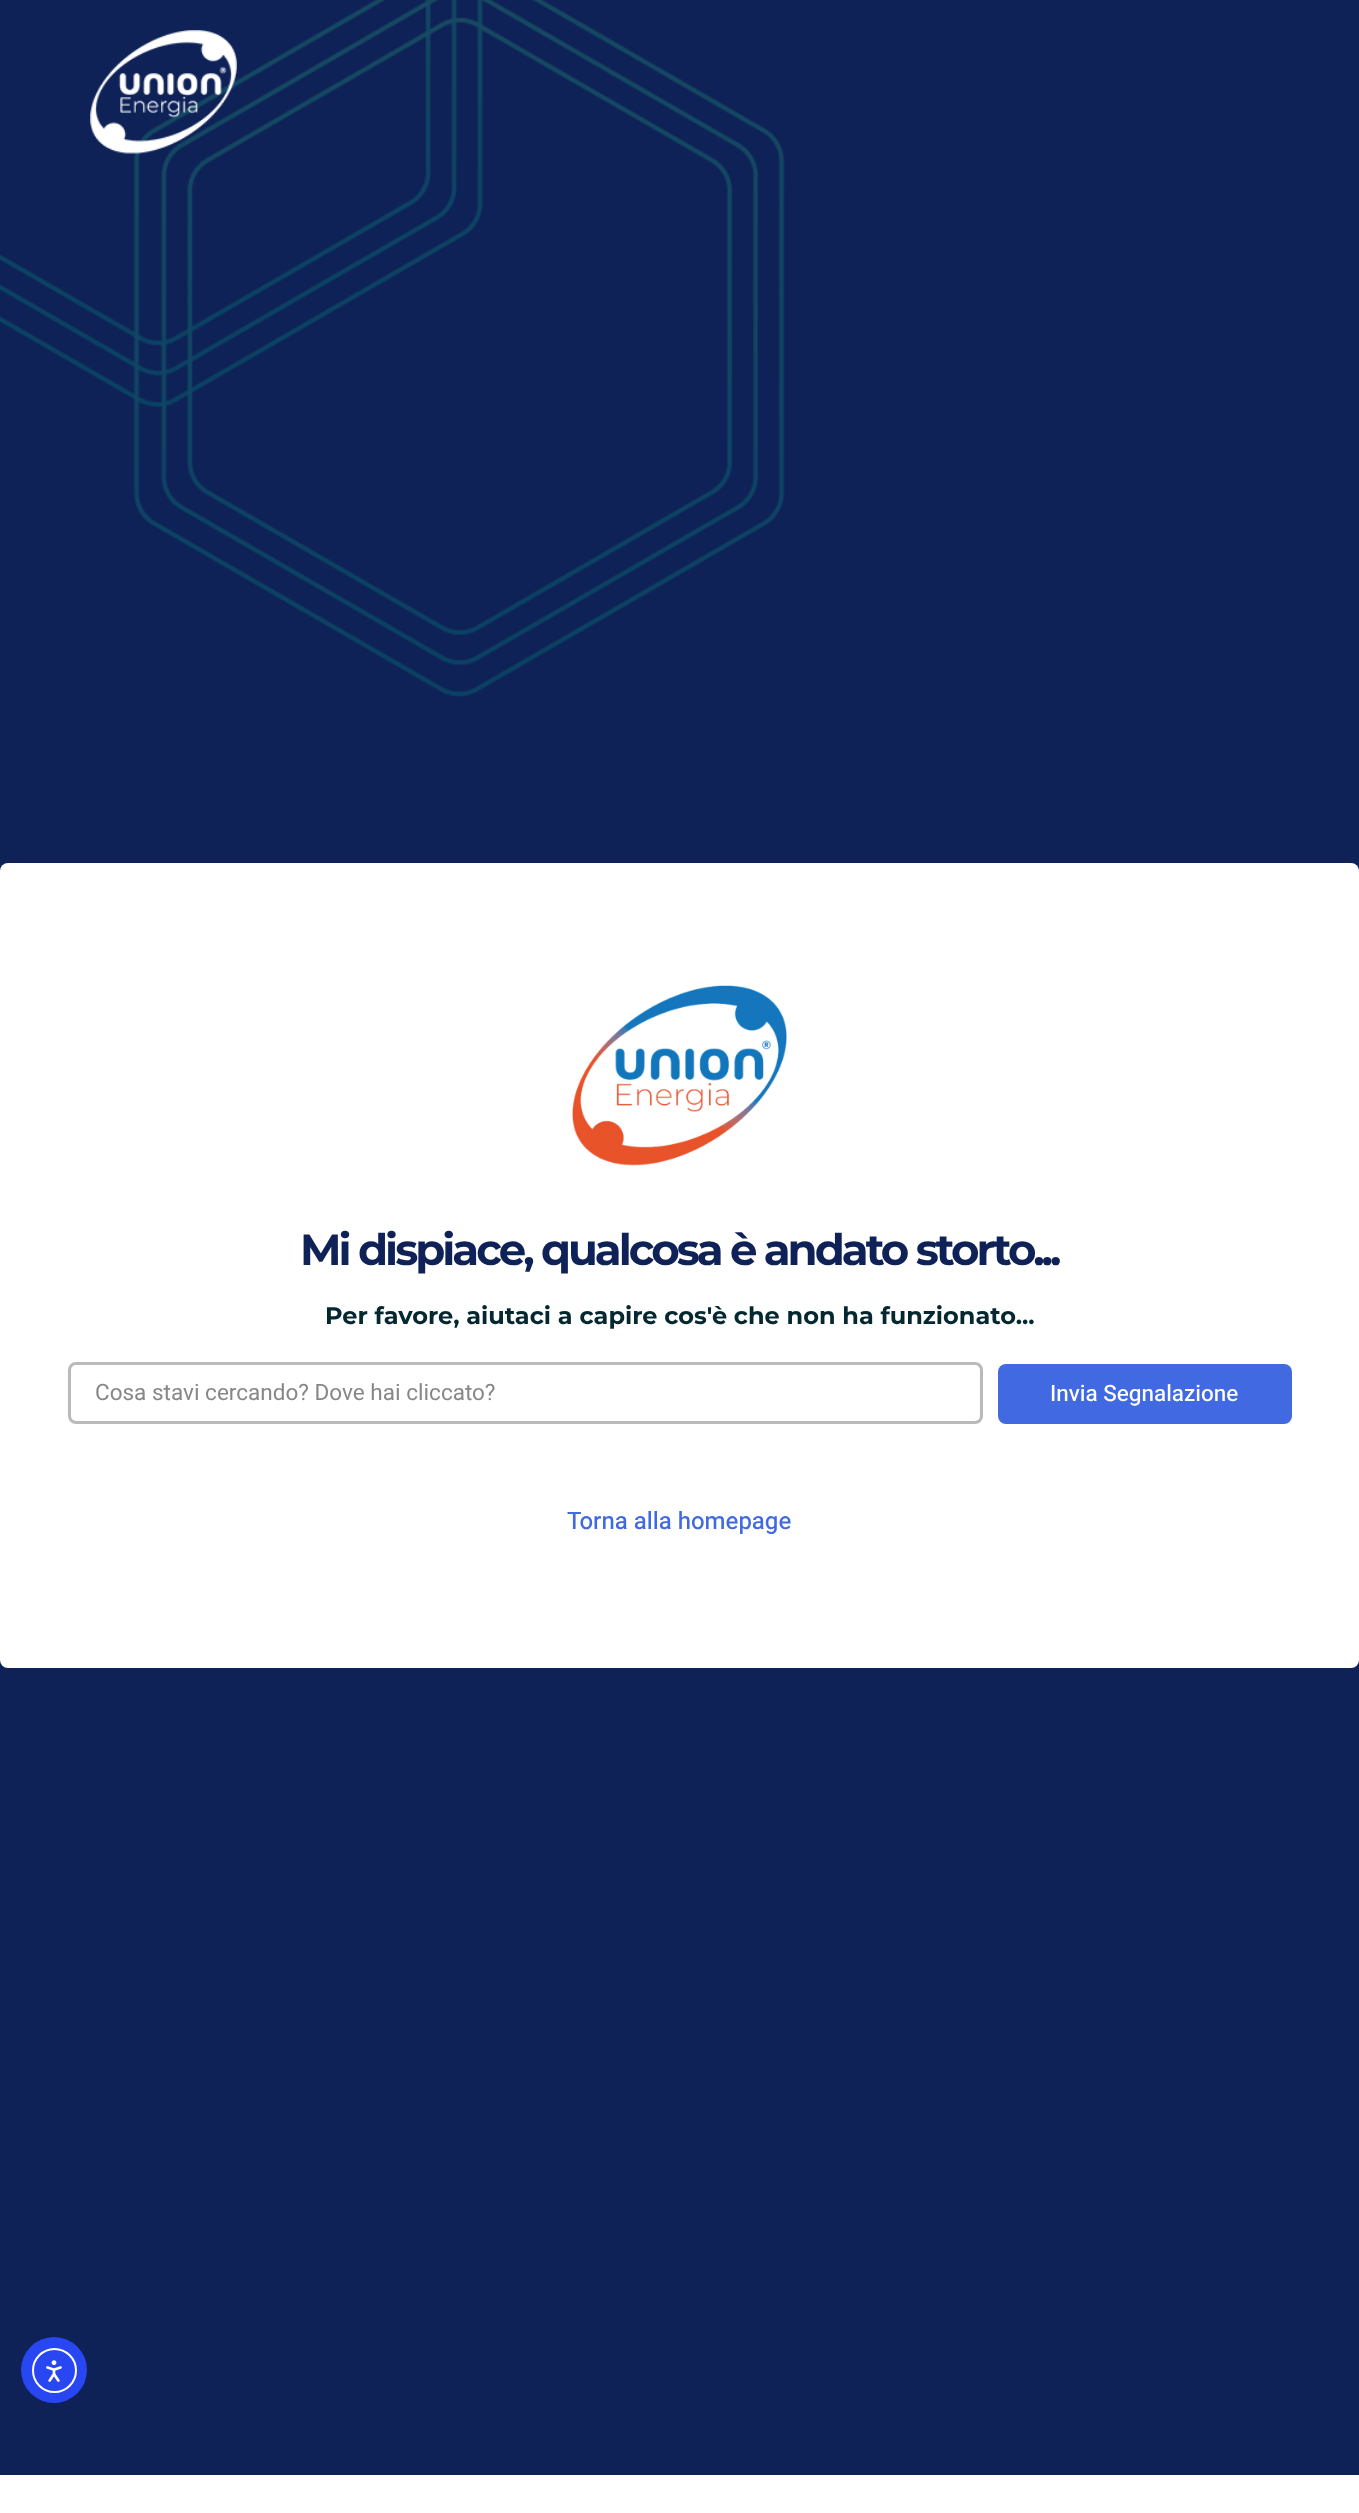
<svg xmlns="http://www.w3.org/2000/svg" width="1359" height="2513">
	<rect width="100%" height="100%" fill="#FFFFFF" />
	<rect x="0" y="0" width="1359" height="2475" fill="#0E2257" />
	<image x="0" y="0" width="785" height="697" href="assets/img2.png" />
	<image x="90" y="30" width="147" height="124" href="assets/img1.png" />
	<rect x="0" y="863" width="1359" height="805" rx="8" fill="#FFFFFF" />
	<image x="572" y="985" width="215" height="181" href="assets/img3.png" />
	<text x="300" y="1265" font-family="Montserrat" font-size="43.5" font-weight="700" letter-spacing="-3" fill="#0E2257">Mi dispiace, qualcosa è andato storto...</text>
	<text x="325" y="1324" font-family="Montserrat" font-size="24" font-weight="700" fill="#052730">Per favore, aiutaci a capire cos'è che non ha funzionato...</text>
	<rect x="69.5" y="1363.5" width="912" height="59" rx="6.5" fill="none" stroke="#BABABA" stroke-width="3" />
	<text x="95" y="1400" font-family="Heebo" font-size="22.5" fill="#878787">Cosa stavi cercando? Dove hai cliccato?</text>
	<rect x="998" y="1364" width="294" height="60" rx="8" fill="#4169E1" />
	<text x="1050" y="1401" font-family="Heebo" font-size="22.5" font-weight="500" fill="#FFFFFF">Invia Segnalazione</text>
	<text x="567" y="1529" font-family="Heebo" font-size="24" font-weight="500" fill="#4169E1">Torna alla homepage</text>
	<circle cx="54" cy="2370" r="33" fill="#2847F3" />
	<circle cx="54.5" cy="2370.5" r="21.5" fill="none" stroke="#FFFFFF" stroke-width="2" />
	<image x="46" y="2360" width="16" height="22" href="assets/img4.png" />
</svg>
